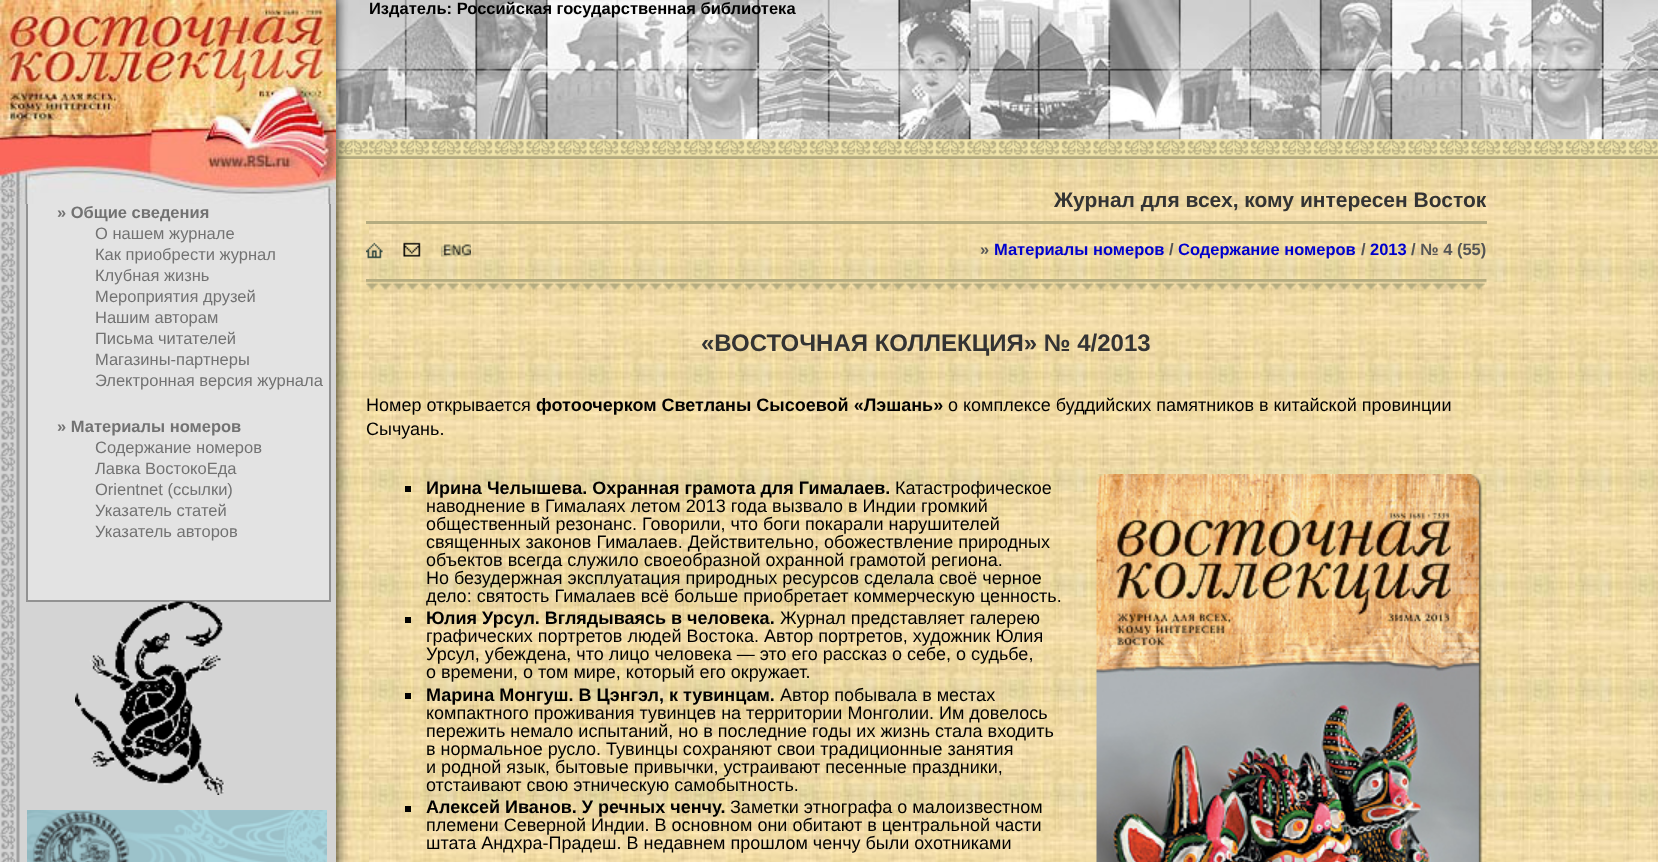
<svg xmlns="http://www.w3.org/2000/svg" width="1658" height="862">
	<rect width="100%" height="100%" fill="#FFFFFF" />
	<image x="369" y="139" width="1289" height="723" href="assets/img1.png" />
	<rect x="19" y="204" width="317" height="658" fill="#D4D4D4" />
	<image x="0" y="204" width="20" height="658" href="assets/img2.png" />
	<image x="0" y="0" width="336" height="204" href="assets/img3.png" />
	<rect x="28" y="204" width="301" height="396" fill="#E3E3E3" />
	<rect x="329" y="204" width="2" height="398" fill="#929292" />
	<rect x="26" y="600" width="304" height="2" fill="#929292" />
	<rect x="26" y="204" width="2" height="398" fill="#929292" />
	<text x="57" y="218" font-family="Liberation Sans" font-size="16.5" font-weight="700" fill="#727272">» Общие сведения</text>
	<g font-family="Liberation Sans" font-size="16.5" fill="#727272">
		<text x="95" y="239">О нашем журнале</text>
		<text x="95" y="260">Как приобрести журнал</text>
		<text x="95" y="281">Клубная жизнь</text>
		<text x="95" y="302">Мероприятия друзей</text>
		<text x="95" y="323">Нашим авторам</text>
		<text x="95" y="344">Письма читателей</text>
		<text x="95" y="365">Магазины-партнеры</text>
		<text x="95" y="386">Электронная версия журнала</text>
	</g>
	<text x="57" y="432" font-family="Liberation Sans" font-size="16.5" font-weight="700" fill="#727272">» Материалы номеров</text>
	<g font-family="Liberation Sans" font-size="16.5" fill="#727272">
		<text x="95" y="453">Содержание номеров</text>
		<text x="95" y="474">Лавка ВостокоЕда</text>
		<text x="95" y="495">Orientnet (ссылки)</text>
		<text x="95" y="516">Указатель статей</text>
		<text x="95" y="537">Указатель авторов</text>
	</g>
	<image x="75" y="601" width="150" height="194" href="assets/img4.png" />
	<image x="27" y="810" width="300" height="52" href="assets/img5.png" />
	<image x="336" y="139" width="33" height="723" href="assets/img6.png" />
	<image x="336" y="0" width="1322" height="140" href="assets/img7.png" />
	<image x="336" y="139" width="1322" height="20" href="assets/img9.png" />
	<image x="336" y="0" width="33" height="140" href="assets/img8.png" />
	<text x="369" y="14" font-family="Liberation Sans" font-size="16.5" font-weight="700" fill="#000000">Издатель: Российская государственная библиотека</text>
	<image x="336" y="139" width="33" height="20" href="assets/img10.png" />
	<rect x="366" y="221" width="1121" height="3" fill="#B5AC80" />
	<text x="1054" y="207" font-family="Liberation Sans" font-size="21" font-weight="700" fill="#333333">Журнал для всех, кому интересен Восток</text>
	<image x="366" y="279" width="1121" height="11" href="assets/img11.png" />
	<image x="366" y="242" width="17" height="17" href="assets/img12.png" />
	<image x="403" y="242" width="18" height="15" href="assets/img13.png" />
	<image x="441" y="244" width="30" height="13" href="assets/img14.png" />
	<text x="980" y="255" font-family="Liberation Sans" font-size="16.5" font-weight="700" fill="#555555">»</text>
	<text x="994" y="255" font-family="Liberation Sans" font-size="16.5" font-weight="700" fill="#0000CD">Материалы номеров</text>
	<text x="1169" y="255" font-family="Liberation Sans" font-size="16.5" font-weight="700" fill="#555555">/</text>
	<text x="1178" y="255" font-family="Liberation Sans" font-size="16.5" font-weight="700" fill="#0000CD">Содержание номеров</text>
	<text x="1361" y="255" font-family="Liberation Sans" font-size="16.5" font-weight="700" fill="#555555">/</text>
	<text x="1370" y="255" font-family="Liberation Sans" font-size="16.5" font-weight="700" fill="#0000CD">2013</text>
	<text x="1411" y="255" font-family="Liberation Sans" font-size="16.5" font-weight="700" fill="#555555">/ № 4 (55)</text>
	<text x="701" y="351" font-family="Liberation Sans" font-size="24" font-weight="700" fill="#333333">«ВОСТОЧНАЯ КОЛЛЕКЦИЯ» № 4/2013</text>
	<text x="366" y="411" font-family="Liberation Sans" font-size="18" fill="#000000">Номер открывается</text>
	<text x="536" y="411" font-family="Liberation Sans" font-size="18" font-weight="700" fill="#000000">фотоочерком Светланы Сысоевой «Лэшань»</text>
	<g font-family="Liberation Sans" font-size="18" fill="#000000">
		<text x="948" y="411">о комплексе буддийских памятников в китайской провинции</text>
		<text x="366" y="435">Сычуань.</text>
	</g>
	<rect x="405" y="486" width="6" height="6" fill="#000000" />
	<text x="426" y="494" font-family="Liberation Sans" font-size="18" font-weight="700" fill="#000000">Ирина Челышева. Охранная грамота для Гималаев.</text>
	<g font-family="Liberation Sans" font-size="18" fill="#000000">
		<text x="895" y="494">Катастрофическое</text>
		<text x="426" y="512">наводнение в Гималаях летом 2013 года вызвало в Индии громкий</text>
		<text x="426" y="530">общественный резонанс. Говорили, что боги покарали нарушителей</text>
		<text x="426" y="548">священных законов Гималаев. Действительно, обожествление природных</text>
		<text x="426" y="566">объектов всегда служило своеобразной охранной грамотой региона.</text>
		<text x="426" y="584">Но безудержная эксплуатация природных ресурсов сделала своё черное</text>
		<text x="426" y="602">дело: святость Гималаев всё больше приобретает коммерческую ценность.</text>
	</g>
	<rect x="405" y="617" width="6" height="6" fill="#000000" />
	<text x="426" y="624" font-family="Liberation Sans" font-size="18" font-weight="700" fill="#000000">Юлия Урсул. Вглядываясь в человека.</text>
	<g font-family="Liberation Sans" font-size="18" fill="#000000">
		<text x="780" y="624">Журнал представляет галерею</text>
		<text x="426" y="642">графических портретов людей Востока. Автор портретов, художник Юлия</text>
		<text x="426" y="660">Урсул, убеждена, что лицо человека — это его рассказ о себе, о судьбе,</text>
		<text x="426" y="678">о времени, о том мире, который его окружает.</text>
	</g>
	<rect x="405" y="693" width="6" height="6" fill="#000000" />
	<text x="426" y="701" font-family="Liberation Sans" font-size="18" font-weight="700" fill="#000000">Марина Монгуш. В Цэнгэл, к тувинцам.</text>
	<g font-family="Liberation Sans" font-size="18" fill="#000000">
		<text x="780" y="701">Автор побывала в местах</text>
		<text x="426" y="719">компактного проживания тувинцев на территории Монголии. Им довелось</text>
		<text x="426" y="737">пережить немало испытаний, но в последние годы их жизнь стала входить</text>
		<text x="426" y="755">в нормальное русло. Тувинцы сохраняют свои традиционные занятия</text>
		<text x="426" y="773">и родной язык, бытовые привычки, устраивают песенные праздники,</text>
		<text x="426" y="791">отстаивают свою этническую самобытность.</text>
	</g>
	<rect x="405" y="806" width="6" height="6" fill="#000000" />
	<text x="426" y="813" font-family="Liberation Sans" font-size="18" font-weight="700" fill="#000000">Алексей Иванов. У речных ченчу.</text>
	<g font-family="Liberation Sans" font-size="18" fill="#000000">
		<text x="730" y="813">Заметки этнографа о малоизвестном</text>
		<text x="426" y="831">племени Северной Индии. В основном они обитают в центральной части</text>
		<text x="426" y="849">штата Андхра-Прадеш. В недавнем прошлом ченчу были охотниками</text>
	</g>
	<image x="1096" y="474" width="391" height="388" href="assets/img15.png" />
</svg>
